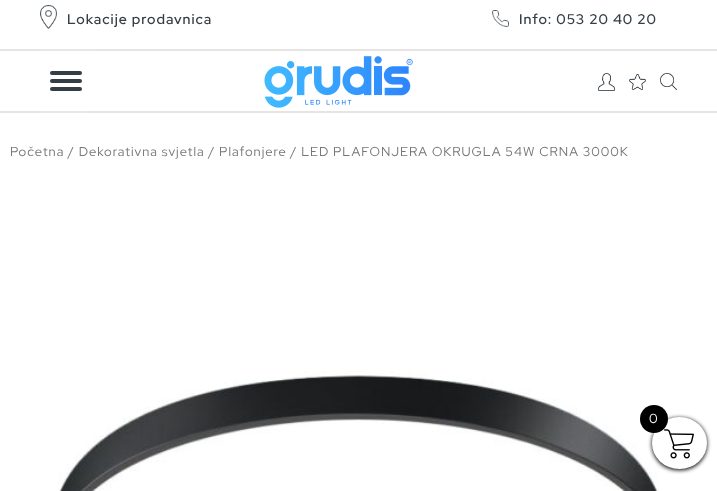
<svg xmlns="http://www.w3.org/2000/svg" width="717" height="491">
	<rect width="100%" height="100%" fill="#FFFFFF" />
	<rect x="0" y="49" width="717" height="2" fill="#E7E4E3" />
	<image x="40" y="5" width="17" height="24" href="assets/img1.png" />
	<text x="67" y="24" font-family="Red Hat Display" font-size="14" font-weight="600" letter-spacing="1" fill="#343E45">Lokacije prodavnica</text>
	<image x="492" y="10" width="17" height="17" href="assets/img2.png" />
	<text x="519" y="24" font-family="Red Hat Display" font-size="14" font-weight="600" letter-spacing="1" fill="#343E45">Info: 053 20 40 20</text>
	<rect x="0" y="111" width="717" height="2" fill="#E7E4E3" />
	<rect x="40" y="41" width="52" height="80" rx="2" fill="#FFFFFF" fill-opacity="0.1" />
	<rect x="50" y="71" width="32" height="4" rx="2" fill="#343E45" />
	<rect x="50" y="79" width="32" height="4" rx="2" fill="#343E45" />
	<rect x="50" y="87" width="32" height="4" rx="2" fill="#343E45" />
	<image x="264" y="56" width="149" height="52" href="assets/img3.png" />
	<image x="598" y="73" width="17" height="18" href="assets/img4.png" />
	<image x="629" y="74" width="17" height="16" href="assets/img5.png" />
	<image x="660" y="73" width="17" height="17" href="assets/img6.png" />
	<text x="10" y="156" font-family="Red Hat Display" font-size="12.9" letter-spacing="1" fill="#767676">Početna / Dekorativna svjetla / Plafonjere / LED PLAFONJERA OKRUGLA 54W CRNA 3000K</text>
	<image x="58" y="371" width="601" height="120" href="assets/img7.png" />
	<rect x="652" y="418" width="55" height="52" rx="26" fill="#000000" filter="blur(2px)" />
	<ellipse cx="679.5" cy="443" rx="27.5" ry="26" fill="#FFFFFF" />
	<circle cx="654" cy="419" r="14" fill="#000000" />
	<text x="649" y="423" font-family="Red Hat Display" font-size="13" letter-spacing="1" fill="#FFFFFF">0</text>
	<image x="664" y="429" width="30" height="30" href="assets/img8.png" />
</svg>
